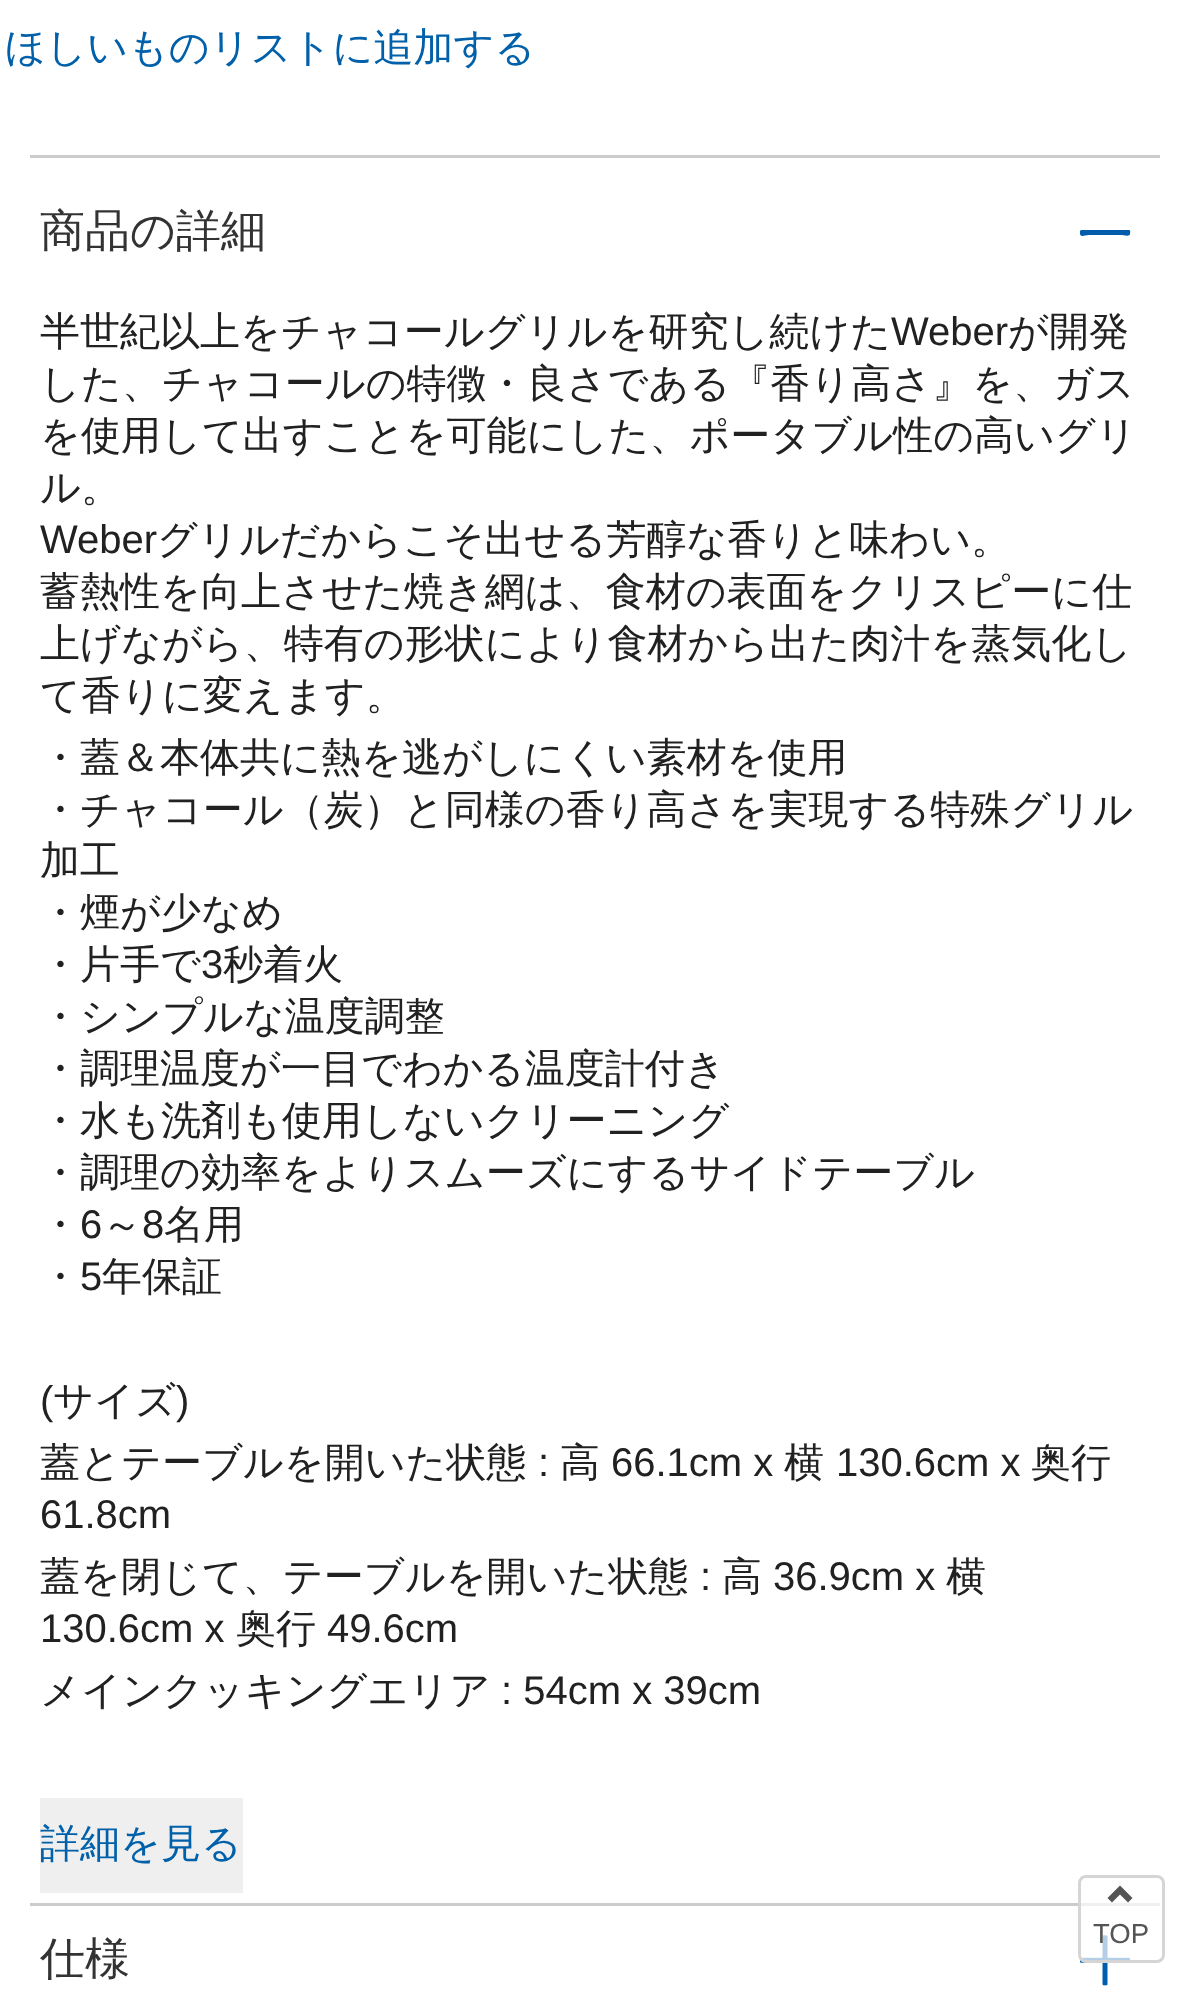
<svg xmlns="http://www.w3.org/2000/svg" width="1188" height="2011">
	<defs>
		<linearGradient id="g1" gradientUnits="userSpaceOnUse" x1="40" y1="1705" x2="40" y2="1798"><stop offset="0" stop-color="#FFFFFF" stop-opacity="0" /><stop offset="1" stop-color="#FFFFFF" /></linearGradient>
	</defs>
	<rect width="100%" height="100%" fill="#FFFFFF" />
	<text x="5" y="61" font-family="WenQuanYi Zen Hei" font-size="40" font-weight="500" fill="#0060A9">ほしいものリストに追加する</text>
	<rect x="30" y="155" width="1130" height="3" fill="#CCCCCC" />
	<text x="40" y="246" font-family="WenQuanYi Zen Hei" font-size="45" font-weight="500" fill="#333333">商品の詳細</text>
	<path d="M1129 230C1131 230 1130 233 1130 234C1130 237 1123 235 1121 235H1089C1084 235 1080 238 1080 233V231L1081 230Z" fill="#005DAB" />
	<text x="40" y="345" font-family="WenQuanYi Zen Hei" font-size="40" font-weight="500" fill="#212121">半世紀以上をチャコールグリルを研究し続けた</text>
	<text x="891" y="345" font-family="Liberation Sans" font-size="40" fill="#212121">Weber</text>
	<g font-family="WenQuanYi Zen Hei" font-size="40" font-weight="500" fill="#212121">
		<text x="1008" y="345">が開発</text>
		<text x="40" y="397">した、チャコールの特徴・良さである『香り高さ』を、ガス</text>
		<text x="40" y="449">を使用して出すことを可能にした、ポータブル性の高いグリ</text>
		<text x="40" y="501">ル。</text>
	</g>
	<text x="40" y="553" font-family="Liberation Sans" font-size="40" fill="#212121">Weber</text>
	<g font-family="WenQuanYi Zen Hei" font-size="40" font-weight="500" fill="#212121">
		<text x="157" y="553">グリルだからこそ出せる芳醇な香りと味わい。</text>
		<text x="40" y="605">蓄熱性を向上させた焼き網は、食材の表面をクリスピーに仕</text>
		<text x="40" y="657">上げながら、特有の形状により食材から出た肉汁を蒸気化し</text>
		<text x="40" y="709">て香りに変えます。</text>
		<text x="40" y="771">・蓋＆本体共に熱を逃がしにくい素材を使用</text>
		<text x="40" y="823">・チャコール（炭）と同様の香り高さを実現する特殊グリル</text>
		<text x="40" y="874">加工</text>
		<text x="40" y="926">・煙が少なめ</text>
		<text x="40" y="978">・片手で</text>
	</g>
	<text x="201" y="978" font-family="Liberation Sans" font-size="40" fill="#212121">3</text>
	<g font-family="WenQuanYi Zen Hei" font-size="40" font-weight="500" fill="#212121">
		<text x="223" y="978">秒着火</text>
		<text x="40" y="1030">・シンプルな温度調整</text>
		<text x="40" y="1082">・調理温度が一目でわかる温度計付き</text>
		<text x="40" y="1134">・水も洗剤も使用しないクリーニング</text>
		<text x="40" y="1186">・調理の効率をよりスムーズにするサイドテーブル</text>
		<text x="40" y="1238">・</text>
	</g>
	<text x="80" y="1238" font-family="Liberation Sans" font-size="40" fill="#212121">6</text>
	<text x="102" y="1238" font-family="WenQuanYi Zen Hei" font-size="40" font-weight="500" fill="#212121">～</text>
	<text x="142" y="1238" font-family="Liberation Sans" font-size="40" fill="#212121">8</text>
	<g font-family="WenQuanYi Zen Hei" font-size="40" font-weight="500" fill="#212121">
		<text x="164" y="1238">名用</text>
		<text x="40" y="1290">・</text>
	</g>
	<text x="80" y="1290" font-family="Liberation Sans" font-size="40" fill="#212121">5</text>
	<text x="102" y="1290" font-family="WenQuanYi Zen Hei" font-size="40" font-weight="500" fill="#212121">年保証</text>
	<text x="40" y="1414" font-family="Liberation Sans" font-size="40" fill="#212121">(</text>
	<text x="53" y="1414" font-family="WenQuanYi Zen Hei" font-size="40" font-weight="500" fill="#212121">サイズ</text>
	<text x="176" y="1414" font-family="Liberation Sans" font-size="40" fill="#212121">)</text>
	<text x="40" y="1476" font-family="WenQuanYi Zen Hei" font-size="40" font-weight="500" fill="#212121">蓋とテーブルを開いた状態</text>
	<text x="538" y="1476" font-family="Liberation Sans" font-size="40" fill="#212121">:</text>
	<text x="560" y="1476" font-family="WenQuanYi Zen Hei" font-size="40" font-weight="500" fill="#212121">高</text>
	<text x="611" y="1476" font-family="Liberation Sans" font-size="40" fill="#212121">66.1cm x</text>
	<text x="784" y="1476" font-family="WenQuanYi Zen Hei" font-size="40" font-weight="500" fill="#212121">横</text>
	<text x="836" y="1476" font-family="Liberation Sans" font-size="40" fill="#212121">130.6cm x</text>
	<text x="1031" y="1476" font-family="WenQuanYi Zen Hei" font-size="40" font-weight="500" fill="#212121">奥行</text>
	<text x="40" y="1528" font-family="Liberation Sans" font-size="40" fill="#212121">61.8cm</text>
	<text x="40" y="1590" font-family="WenQuanYi Zen Hei" font-size="40" font-weight="500" fill="#212121">蓋を閉じて、テーブルを開いた状態</text>
	<text x="700" y="1590" font-family="Liberation Sans" font-size="40" fill="#212121">:</text>
	<text x="722" y="1590" font-family="WenQuanYi Zen Hei" font-size="40" font-weight="500" fill="#212121">高</text>
	<text x="773" y="1590" font-family="Liberation Sans" font-size="40" fill="#212121">36.9cm x</text>
	<text x="946" y="1590" font-family="WenQuanYi Zen Hei" font-size="40" font-weight="500" fill="#212121">横</text>
	<text x="40" y="1642" font-family="Liberation Sans" font-size="40" fill="#212121">130.6cm x</text>
	<text x="236" y="1642" font-family="WenQuanYi Zen Hei" font-size="40" font-weight="500" fill="#212121">奥行</text>
	<text x="327" y="1642" font-family="Liberation Sans" font-size="40" fill="#212121">49.6cm</text>
	<text x="40" y="1704" font-family="WenQuanYi Zen Hei" font-size="40" font-weight="500" fill="#212121">メインクッキングエリア</text>
	<text x="501" y="1704" font-family="Liberation Sans" font-size="40" fill="#212121">: 54cm x 39cm</text>
	<rect x="101" y="1707" width="329" height="3" fill="url(#g1)" />
	<rect x="40" y="1798" width="203" height="95" fill="#EFEFEF" />
	<text x="40" y="1857" font-family="WenQuanYi Zen Hei" font-size="40" font-weight="500" fill="#0060A9">詳細を見る</text>
	<rect x="30" y="1903" width="1130" height="3" fill="#CCCCCC" />
	<text x="40" y="1974" font-family="WenQuanYi Zen Hei" font-size="45" font-weight="500" fill="#333333">仕様</text>
	<image x="1080" y="1935" width="50" height="51" href="assets/img1.png" />
	<rect x="1079.5" y="1876.5" width="84" height="85" rx="6.5" fill="#FFFFFF" fill-opacity="0.7" stroke="#D5D5D5" stroke-width="3" />
	<path d="M1132.5 1898L1128 1902.5L1120 1894.5L1112 1902.5L1107.5 1898L1120 1885.5Z" fill="#545454" />
	<text x="1093" y="1943" font-family="Liberation Sans" font-size="27.5" fill="#545454">TOP</text>
</svg>
